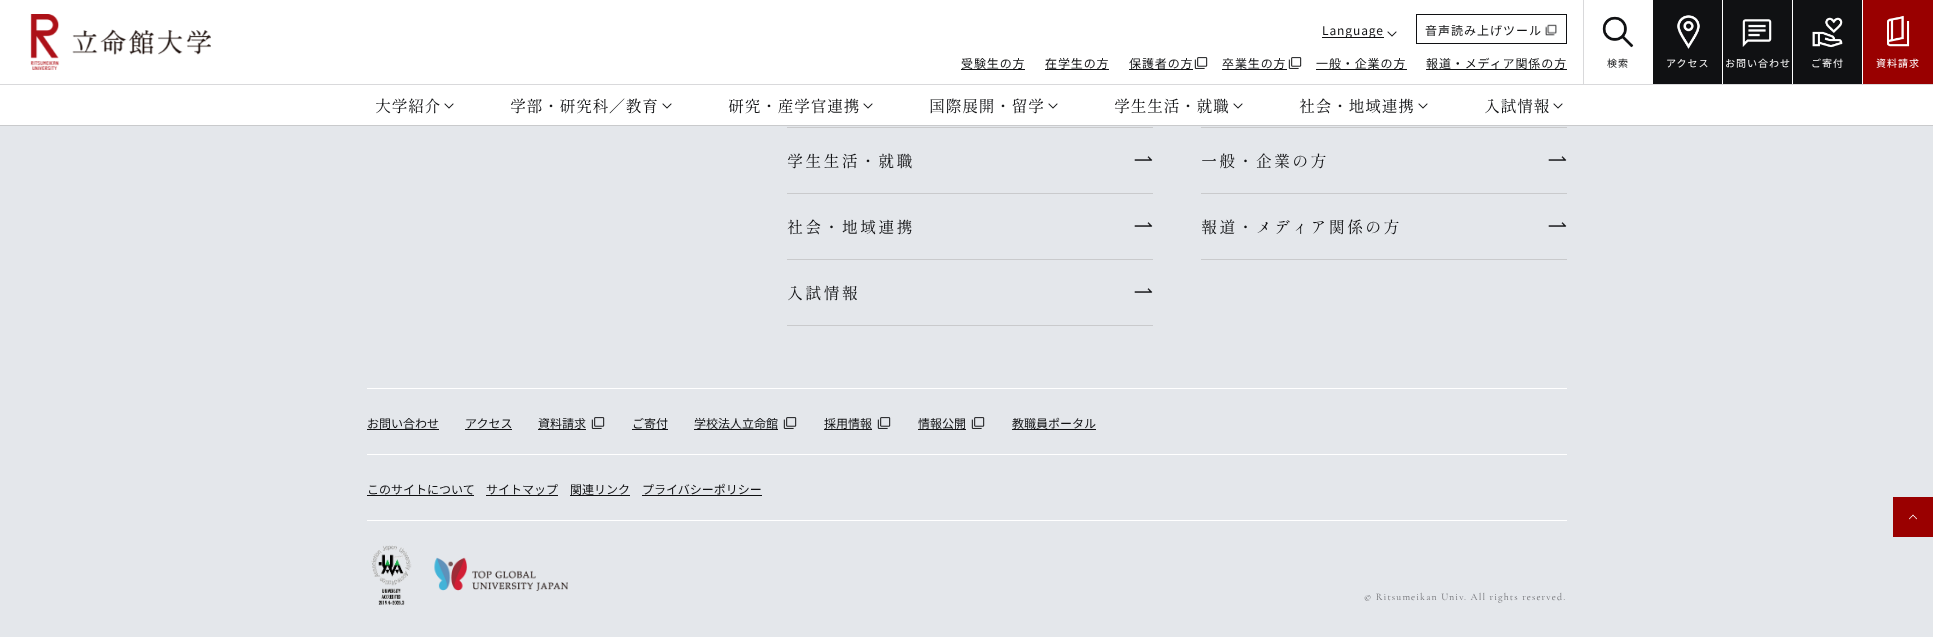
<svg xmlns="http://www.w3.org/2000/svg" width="1933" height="637">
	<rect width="100%" height="100%" fill="#E4E7EB" />
	<rect x="0" y="0" width="1933" height="125" fill="#FFFFFF" />
	<rect x="0" y="125" width="1933" height="1" fill="#C9CACC" />
	<rect x="0" y="84" width="1933" height="1" fill="#D9D9DB" />
	<image x="30" y="14" width="181" height="56" href="assets/img1.png" />
	<rect x="1322" y="37" width="62" height="1" fill="#101113" />
	<text x="1322" y="35" font-family="Noto Sans JP" font-size="12" letter-spacing="0.9" fill="#101113">Language</text>
	<image x="1387" y="31" width="10" height="6" href="assets/img2.png" />
	<rect x="1416.5" y="14.5" width="150" height="29" fill="none" stroke="#101113" />
	<text x="1425" y="35" font-family="Noto Sans JP" font-size="12" letter-spacing="1" fill="#101113">音声読み上げツール</text>
	<image x="1545" y="24" width="12" height="12" href="assets/img3.png" />
	<text x="961" y="68" font-family="Noto Sans JP" font-size="12" letter-spacing="0.9" fill="#101113">受験生の方</text>
	<rect x="961" y="69" width="64" height="1" fill="#101113" />
	<text x="1045" y="68" font-family="Noto Sans JP" font-size="12" letter-spacing="0.9" fill="#101113">在学生の方</text>
	<rect x="1045" y="69" width="64" height="1" fill="#101113" />
	<text x="1129" y="68" font-family="Noto Sans JP" font-size="12" letter-spacing="0.9" fill="#101113">保護者の方</text>
	<rect x="1129" y="69" width="64" height="1" fill="#101113" />
	<image x="1194" y="57" width="14" height="12" href="assets/img4.png" />
	<text x="1222" y="68" font-family="Noto Sans JP" font-size="12" letter-spacing="0.9" fill="#101113">卒業生の方</text>
	<rect x="1222" y="69" width="65" height="1" fill="#101113" />
	<image x="1288" y="57" width="14" height="12" href="assets/img4.png" />
	<text x="1316" y="68" font-family="Noto Sans JP" font-size="12" letter-spacing="0.9" fill="#101113">一般・企業の方</text>
	<rect x="1316" y="69" width="91" height="1" fill="#101113" />
	<text x="1426" y="68" font-family="Noto Sans JP" font-size="12" letter-spacing="0.9" fill="#101113">報道・メディア関係の方</text>
	<rect x="1426" y="69" width="141" height="1" fill="#101113" />
	<rect x="1583" y="0" width="1" height="84" fill="#D9D9DB" />
	<image x="1602" y="16" width="32" height="32" href="assets/img5.png" />
	<text x="1607" y="67" font-family="Noto Sans JP" font-size="10" letter-spacing="1" fill="#101113">検索</text>
	<rect x="1653" y="0" width="69" height="84" fill="#101113" />
	<image x="1677" y="15" width="23" height="34" href="assets/img6.png" />
	<text x="1666" y="67" font-family="Noto Sans JP" font-size="10" letter-spacing="1" fill="#FFFFFF">アクセス</text>
	<rect x="1723" y="0" width="69" height="84" fill="#101113" />
	<image x="1742" y="19" width="30" height="28" href="assets/img7.png" />
	<text x="1725" y="67" font-family="Noto Sans JP" font-size="10" letter-spacing="1" fill="#FFFFFF">お問い合わせ</text>
	<rect x="1793" y="0" width="69" height="84" fill="#101113" />
	<image x="1812" y="17" width="31" height="31" href="assets/img8.png" />
	<text x="1811" y="67" font-family="Noto Sans JP" font-size="10" letter-spacing="1" fill="#FFFFFF">ご寄付</text>
	<rect x="1863" y="0" width="70" height="84" fill="#990000" />
	<image x="1887" y="15" width="23" height="32" href="assets/img9.png" />
	<text x="1876" y="67" font-family="Noto Sans JP" font-size="10" letter-spacing="1" fill="#FFFFFF">資料請求</text>
	<text x="375" y="112" font-family="'Shippori Mincho B1'" font-size="16" letter-spacing="0.5" fill="#101113">大学紹介</text>
	<image x="444" y="103" width="10" height="6" href="assets/img2.png" />
	<text x="510" y="112" font-family="'Shippori Mincho B1'" font-size="16" letter-spacing="0.5" fill="#101113">学部・研究科／教育</text>
	<image x="662" y="103" width="10" height="6" href="assets/img2.png" />
	<text x="728" y="112" font-family="'Shippori Mincho B1'" font-size="16" letter-spacing="0.5" fill="#101113">研究・産学官連携</text>
	<image x="863" y="103" width="10" height="6" href="assets/img2.png" />
	<text x="929" y="112" font-family="'Shippori Mincho B1'" font-size="16" letter-spacing="0.5" fill="#101113">国際展開・留学</text>
	<image x="1048" y="103" width="10" height="6" href="assets/img2.png" />
	<text x="1114" y="112" font-family="'Shippori Mincho B1'" font-size="16" letter-spacing="0.5" fill="#101113">学生生活・就職</text>
	<image x="1233" y="103" width="10" height="6" href="assets/img2.png" />
	<text x="1299" y="112" font-family="'Shippori Mincho B1'" font-size="16" letter-spacing="0.5" fill="#101113">社会・地域連携</text>
	<image x="1418" y="103" width="10" height="6" href="assets/img2.png" />
	<text x="1484" y="112" font-family="'Shippori Mincho B1'" font-size="16" letter-spacing="0.5" fill="#101113">入試情報</text>
	<image x="1553" y="103" width="10" height="6" href="assets/img2.png" />
	<rect x="367" y="388" width="1200" height="1" fill="#FFFFFF" />
	<rect x="787" y="127" width="366" height="1" fill="#C9CACC" />
	<text x="787" y="167" font-family="'Shippori Mincho B1'" font-size="16" letter-spacing="2.25" fill="#101113">学生生活・就職</text>
	<image x="1134" y="156" width="19" height="5" href="assets/img10.png" />
	<rect x="787" y="193" width="366" height="1" fill="#C9CACC" />
	<text x="787" y="233" font-family="'Shippori Mincho B1'" font-size="16" letter-spacing="2.25" fill="#101113">社会・地域連携</text>
	<image x="1134" y="222" width="19" height="5" href="assets/img10.png" />
	<rect x="787" y="259" width="366" height="1" fill="#C9CACC" />
	<rect x="787" y="325" width="366" height="1" fill="#C9CACC" />
	<text x="787" y="299" font-family="'Shippori Mincho B1'" font-size="16" letter-spacing="2.25" fill="#101113">入試情報</text>
	<image x="1134" y="288" width="19" height="5" href="assets/img10.png" />
	<rect x="1201" y="127" width="366" height="1" fill="#C9CACC" />
	<text x="1201" y="167" font-family="'Shippori Mincho B1'" font-size="16" letter-spacing="2.25" fill="#101113">一般・企業の方</text>
	<image x="1548" y="156" width="19" height="5" href="assets/img10.png" />
	<rect x="1201" y="193" width="366" height="1" fill="#C9CACC" />
	<rect x="1201" y="259" width="366" height="1" fill="#C9CACC" />
	<text x="1201" y="233" font-family="'Shippori Mincho B1'" font-size="16" letter-spacing="2.25" fill="#101113">報道・メディア関係の方</text>
	<image x="1548" y="222" width="19" height="5" href="assets/img10.png" />
	<rect x="367" y="454" width="1200" height="1" fill="#FFFFFF" />
	<text x="367" y="428" font-family="Noto Sans JP" font-size="12" fill="#101113">お問い合わせ</text>
	<rect x="367" y="429" width="72" height="1" fill="#101113" />
	<text x="465" y="428" font-family="Noto Sans JP" font-size="12" fill="#101113">アクセス</text>
	<rect x="465" y="429" width="47" height="1" fill="#101113" />
	<text x="538" y="428" font-family="Noto Sans JP" font-size="12" fill="#101113">資料請求</text>
	<rect x="538" y="429" width="48" height="1" fill="#101113" />
	<image x="591" y="417" width="14" height="12" href="assets/img11.png" />
	<text x="632" y="428" font-family="Noto Sans JP" font-size="12" fill="#101113">ご寄付</text>
	<rect x="632" y="429" width="36" height="1" fill="#101113" />
	<text x="694" y="428" font-family="Noto Sans JP" font-size="12" fill="#101113">学校法人立命館</text>
	<rect x="694" y="429" width="84" height="1" fill="#101113" />
	<image x="783" y="417" width="14" height="12" href="assets/img11.png" />
	<text x="824" y="428" font-family="Noto Sans JP" font-size="12" fill="#101113">採用情報</text>
	<rect x="824" y="429" width="48" height="1" fill="#101113" />
	<image x="877" y="417" width="14" height="12" href="assets/img11.png" />
	<text x="918" y="428" font-family="Noto Sans JP" font-size="12" fill="#101113">情報公開</text>
	<rect x="918" y="429" width="48" height="1" fill="#101113" />
	<image x="971" y="417" width="14" height="12" href="assets/img11.png" />
	<text x="1012" y="428" font-family="Noto Sans JP" font-size="12" fill="#101113">教職員ポータル</text>
	<rect x="1012" y="429" width="84" height="1" fill="#101113" />
	<rect x="367" y="520" width="1200" height="1" fill="#FFFFFF" />
	<text x="367" y="494" font-family="Noto Sans JP" font-size="12" fill="#101113">このサイトについて</text>
	<rect x="367" y="495" width="107" height="1" fill="#101113" />
	<text x="486" y="494" font-family="Noto Sans JP" font-size="12" fill="#101113">サイトマップ</text>
	<rect x="486" y="495" width="72" height="1" fill="#101113" />
	<text x="570" y="494" font-family="Noto Sans JP" font-size="12" fill="#101113">関連リンク</text>
	<rect x="570" y="495" width="60" height="1" fill="#101113" />
	<text x="642" y="494" font-family="Noto Sans JP" font-size="12" fill="#101113">プライバシーポリシー</text>
	<rect x="642" y="495" width="120" height="1" fill="#101113" />
	<image x="371" y="545" width="41" height="60" href="assets/img12.png" />
	<image x="434" y="557" width="134" height="34" href="assets/img13.png" />
	<text x="1364" y="600" font-family="Cormorant Garamond" font-size="10" letter-spacing="1.1" fill="#6B6C70">© Ritsumeikan Univ. All rights reserved.</text>
	<image x="1893" y="497" width="40" height="40" href="assets/img14.png" />
</svg>
